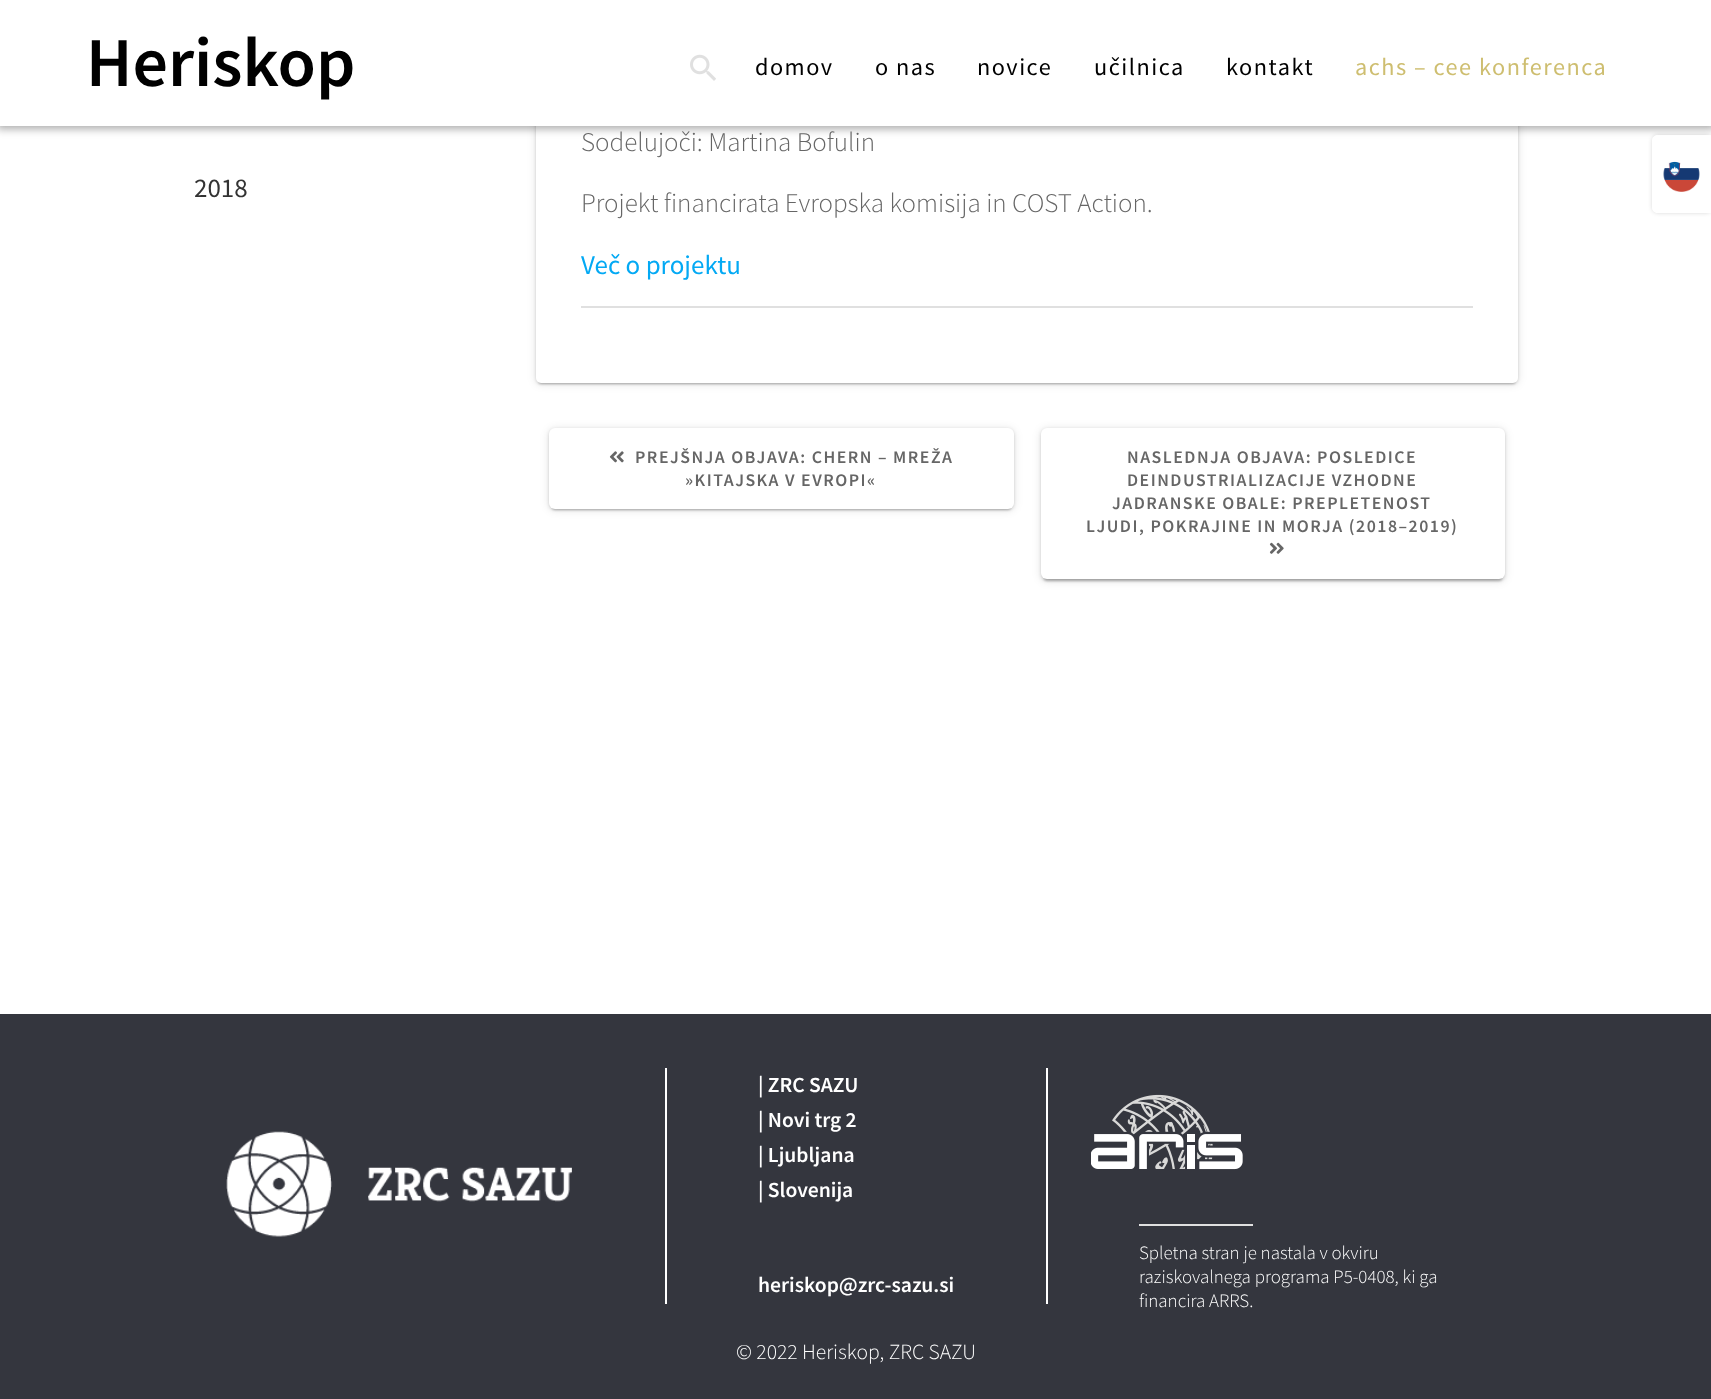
<svg xmlns="http://www.w3.org/2000/svg" width="1711" height="1399">
	<defs>
		<clipPath id="clip1"><path d="M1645 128H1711V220H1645ZM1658 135H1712V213H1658C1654.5 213 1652 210.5 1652 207V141C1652 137.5 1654.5 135 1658 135Z" clip-rule="evenodd" /></clipPath>
	</defs>
	<rect width="100%" height="100%" fill="#FFFFFF" />
	<rect x="536" y="-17" width="982" height="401" rx="5" fill="#000000" fill-opacity="0.12" filter="blur(4px)" />
	<rect x="539" y="-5" width="976" height="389" rx="1.5" fill="#000000" fill-opacity="0.2" filter="blur(1px)" />
	<rect x="536" y="-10" width="982" height="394" rx="5" fill="#000000" fill-opacity="0.14" filter="blur(1.5px)" />
	<rect x="536" y="-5" width="982" height="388" rx="5" fill="#FFFFFF" />
	<rect x="-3" y="-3" width="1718" height="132" fill="#000000" fill-opacity="0.33" filter="blur(4px)" />
	<rect x="0" y="0" width="1711" height="126" fill="#FFFFFF" />
	<text x="86" y="86" font-family="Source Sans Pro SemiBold" font-size="70" font-weight="600" fill="#000000">Heriskop</text>
	<image x="690" y="54" width="26" height="27" href="assets/img1.png" />
	<g font-family="Source Sans Pro" font-size="24.25" letter-spacing="1.5" fill="#000000">
		<text x="755" y="75">domov</text>
		<text x="875" y="75">o nas</text>
		<text x="977" y="75">novice</text>
		<text x="1094" y="75">učilnica</text>
		<text x="1226" y="75">kontakt</text>
	</g>
	<text x="1355" y="75" font-family="Source Sans Pro" font-size="24.25" letter-spacing="1.5" fill="#CEBE70">achs – cee konferenca</text>
	<text x="194" y="197" font-family="Source Sans Pro" font-size="27" fill="#333333">2018</text>
	<rect x="581" y="306" width="892" height="2" fill="#E0E0E0" />
	<g font-family="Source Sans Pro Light" font-size="27" font-weight="300" fill="#666666">
		<text x="581" y="151">Sodelujoči: Martina Bofulin</text>
		<text x="581" y="212">Projekt financirata Evropska komisija in COST Action.</text>
	</g>
	<text x="581" y="274" font-family="Source Sans Pro" font-size="27" fill="#03A9F4">Več o projektu</text>
	<rect x="549" y="429" width="465" height="81" rx="6" fill="#000000" fill-opacity="0.12" filter="blur(4px)" />
	<rect x="552" y="435" width="459" height="75" rx="3" fill="#000000" fill-opacity="0.2" filter="blur(1px)" />
	<rect x="549" y="429" width="465" height="81" rx="6" fill="#000000" fill-opacity="0.14" filter="blur(1.5px)" />
	<rect x="549" y="428" width="465" height="81" rx="6" fill="#FFFFFF" />
	<image x="609" y="451" width="15" height="12" href="assets/img2.png" />
	<g font-family="Source Sans Pro SemiBold" font-size="17.8" font-weight="600" letter-spacing="1.5" fill="#666666">
		<text x="635" y="463">PREJŠNJA OBJAVA: CHERN – MREŽA</text>
		<text x="685" y="486">»KITAJSKA V EVROPI«</text>
	</g>
	<rect x="1041" y="429" width="464" height="152" rx="6" fill="#000000" fill-opacity="0.12" filter="blur(4px)" />
	<rect x="1044" y="435" width="458" height="146" rx="3" fill="#000000" fill-opacity="0.2" filter="blur(1px)" />
	<rect x="1041" y="429" width="464" height="152" rx="6" fill="#000000" fill-opacity="0.14" filter="blur(1.5px)" />
	<rect x="1041" y="428" width="464" height="151" rx="6" fill="#FFFFFF" />
	<g font-family="Source Sans Pro SemiBold" font-size="17.8" font-weight="600" letter-spacing="1.5" fill="#666666">
		<text x="1127" y="463">NASLEDNJA OBJAVA: POSLEDICE</text>
		<text x="1127" y="486">DEINDUSTRIALIZACIJE VZHODNE</text>
		<text x="1112" y="509">JADRANSKE OBALE: PREPLETENOST</text>
		<text x="1086" y="532">LJUDI, POKRAJINE IN MORJA (2018–2019)</text>
	</g>
	<image x="1269" y="542" width="15" height="12" href="assets/img3.png" />
	<g clip-path="url(#clip1)">
		<rect x="1652" y="135" width="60" height="78" rx="6" fill="#000000" fill-opacity="0.15" filter="blur(2px)" />
	</g>
	<path d="M1658 135H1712V213H1658C1654.5 213 1652 210.5 1652 207V141C1652 137.5 1654.5 135 1658 135Z" fill="#FFFFFF" fill-opacity="0.8" />
	<image x="1663" y="161" width="37" height="31" href="assets/img4.png" />
	<rect x="0" y="1014" width="1711" height="385" fill="#34363E" />
	<image x="226" y="1131" width="346" height="106" href="assets/img5.png" />
	<rect x="1046" y="1068" width="2" height="236" fill="#FFFFFF" />
	<rect x="665" y="1068" width="2" height="236" fill="#FFFFFF" />
	<g font-family="Source Sans Pro SemiBold" font-size="21.6" font-weight="600" fill="#FFFFFF">
		<text x="758" y="1092">| ZRC SAZU</text>
		<text x="758" y="1127">| Novi trg 2</text>
		<text x="758" y="1162">| Ljubljana</text>
		<text x="758" y="1197">| Slovenija</text>
		<text x="758" y="1292">heriskop@zrc-sazu.si</text>
	</g>
	<image x="1091" y="1094" width="152" height="76" href="assets/img6.png" />
	<rect x="1139" y="1224" width="114" height="2" fill="#E0E0E0" />
	<g font-family="Source Sans Pro Light" font-size="18.9" font-weight="300" fill="#FFFFFF">
		<text x="1139" y="1259">Spletna stran je nastala v okviru</text>
		<text x="1139" y="1283">raziskovalnega programa P5-0408, ki ga</text>
		<text x="1139" y="1307">financira ARRS.</text>
	</g>
	<text x="736" y="1359" font-family="Source Sans Pro Light" font-size="21.6" font-weight="300" fill="#FFFFFF">© 2022 Heriskop, ZRC SAZU</text>
</svg>
